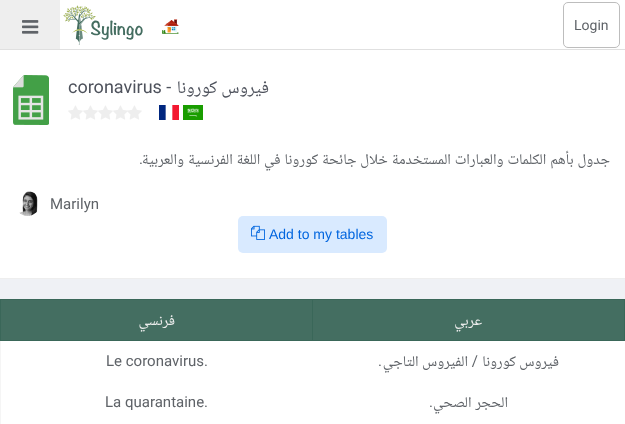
<svg xmlns="http://www.w3.org/2000/svg" width="625" height="424">
	<rect width="100%" height="100%" fill="#EFF1F5" />
	<rect x="60" y="0" width="565" height="49" fill="#FFFFFF" />
	<rect x="0" y="49" width="625" height="1" fill="#E0E0E0" />
	<rect x="563.5" y="2.5" width="56" height="45" rx="4.5" fill="none" stroke="#BDBDBD" />
	<text x="574" y="30" font-family="Roboto" font-size="14" fill="#5F6368">Login</text>
	<image x="162" y="19" width="17" height="15" href="assets/img1.png" />
	<image x="63" y="5" width="80" height="40" href="assets/img2.png" />
	<rect x="0" y="0" width="60" height="49" fill="#EEEEEE" />
	<image x="22" y="20" width="17" height="14" href="assets/img3.png" />
	<rect x="0" y="50" width="625" height="228" fill="#FFFFFF" />
	<rect x="0" y="278" width="625" height="1" fill="#EEEEEE" />
	<text x="269" y="93" font-family="Noto Naskh Arabic" font-size="18" direction="rtl" fill="#4E525C">فيروس كورونا</text>
	<text x="68" y="93" font-family="Roboto" font-size="18" fill="#4E525C">coronavirus -</text>
	<image x="183" y="105" width="20" height="15" href="assets/img4.png" />
	<image x="159" y="105" width="20" height="15" href="assets/img5.png" />
	<image x="113" y="105" width="15" height="15" href="assets/img7.png" />
	<image x="127" y="105" width="15" height="15" href="assets/img6.png" />
	<image x="98" y="105" width="15" height="15" href="assets/img7.png" />
	<image x="83" y="105" width="15" height="15" href="assets/img7.png" />
	<image x="68" y="105" width="15" height="15" href="assets/img7.png" />
	<image x="13" y="75" width="36" height="50" href="assets/img8.png" />
	<text x="610" y="164" word-spacing="0.5" font-family="Noto Naskh Arabic" font-size="15" direction="rtl" fill="#5F6368">جدول بأهم الكلمات والعبارات المستخدمة خلال جائحة كورونا في اللغة الفرنسية والعربية</text>
	<text x="143" y="164" font-family="Roboto" font-size="15" direction="rtl" fill="#5F6368">.</text>
	<text x="50" y="209" font-family="Roboto" font-size="15" fill="#5F6368">Marilyn</text>
	<image x="19" y="191" width="19" height="25" href="assets/img9.png" />
	<rect x="238" y="216" width="149" height="37" rx="5" fill="#D9EAFF" />
	<text x="269" y="239" font-family="Liberation Sans" font-size="14" fill="#0065DF">Add to my tables</text>
	<image x="251" y="225" width="14" height="15" href="assets/img10.png" />
	<rect x="313" y="300" width="311" height="40" fill="#446E61" />
	<rect x="312" y="299" width="313" height="1" fill="#3A6759" />
	<rect x="624" y="299" width="1" height="42" fill="#3A6759" />
	<rect x="312" y="340" width="313" height="1" fill="#3A6759" />
	<rect x="312" y="299" width="1" height="42" fill="#3A6759" />
	<text x="482" y="325" font-family="Noto Naskh Arabic" font-size="15" direction="rtl" fill="#EEEEEE">عربي</text>
	<rect x="1" y="300" width="311" height="40" fill="#446E61" />
	<rect x="0" y="299" width="313" height="1" fill="#3A6759" />
	<rect x="0" y="340" width="1" height="84" fill="#F5F5F5" />
	<rect x="0" y="340" width="313" height="1" fill="#3A6759" />
	<rect x="0" y="299" width="1" height="42" fill="#3A6759" />
	<text x="175" y="325" font-family="Noto Naskh Arabic" font-size="15" direction="rtl" fill="#EEEEEE">فرنسي</text>
	<rect x="1" y="423" width="624" height="1" fill="#FFFFFF" />
	<rect x="1" y="341" width="624" height="41" fill="#FFFFFF" />
	<text x="559" y="366" font-family="Noto Naskh Arabic" font-size="15" direction="rtl" fill="#5F6368">فيروس كورونا</text>
	<text x="478" y="366" font-family="Roboto" font-size="15" direction="rtl" fill="#5F6368">/</text>
	<text x="468" y="366" font-family="Noto Naskh Arabic" font-size="15" direction="rtl" fill="#5F6368">الفيروس التاجي</text>
	<text x="382" y="366" font-family="Roboto" font-size="15" direction="rtl" fill="#5F6368">.</text>
	<text x="106" y="366" font-family="Roboto" font-size="15" fill="#5F6368">Le coronavirus.</text>
	<rect x="1" y="382" width="624" height="41" fill="#FFFFFF" />
	<text x="508" y="407" word-spacing="0.5" font-family="Noto Naskh Arabic" font-size="15" direction="rtl" fill="#5F6368">الحجر الصحي</text>
	<text x="433" y="407" font-family="Roboto" font-size="15" direction="rtl" fill="#5F6368">.</text>
	<text x="105" y="407" font-family="Roboto" font-size="15" fill="#5F6368">La quarantaine.</text>
</svg>
